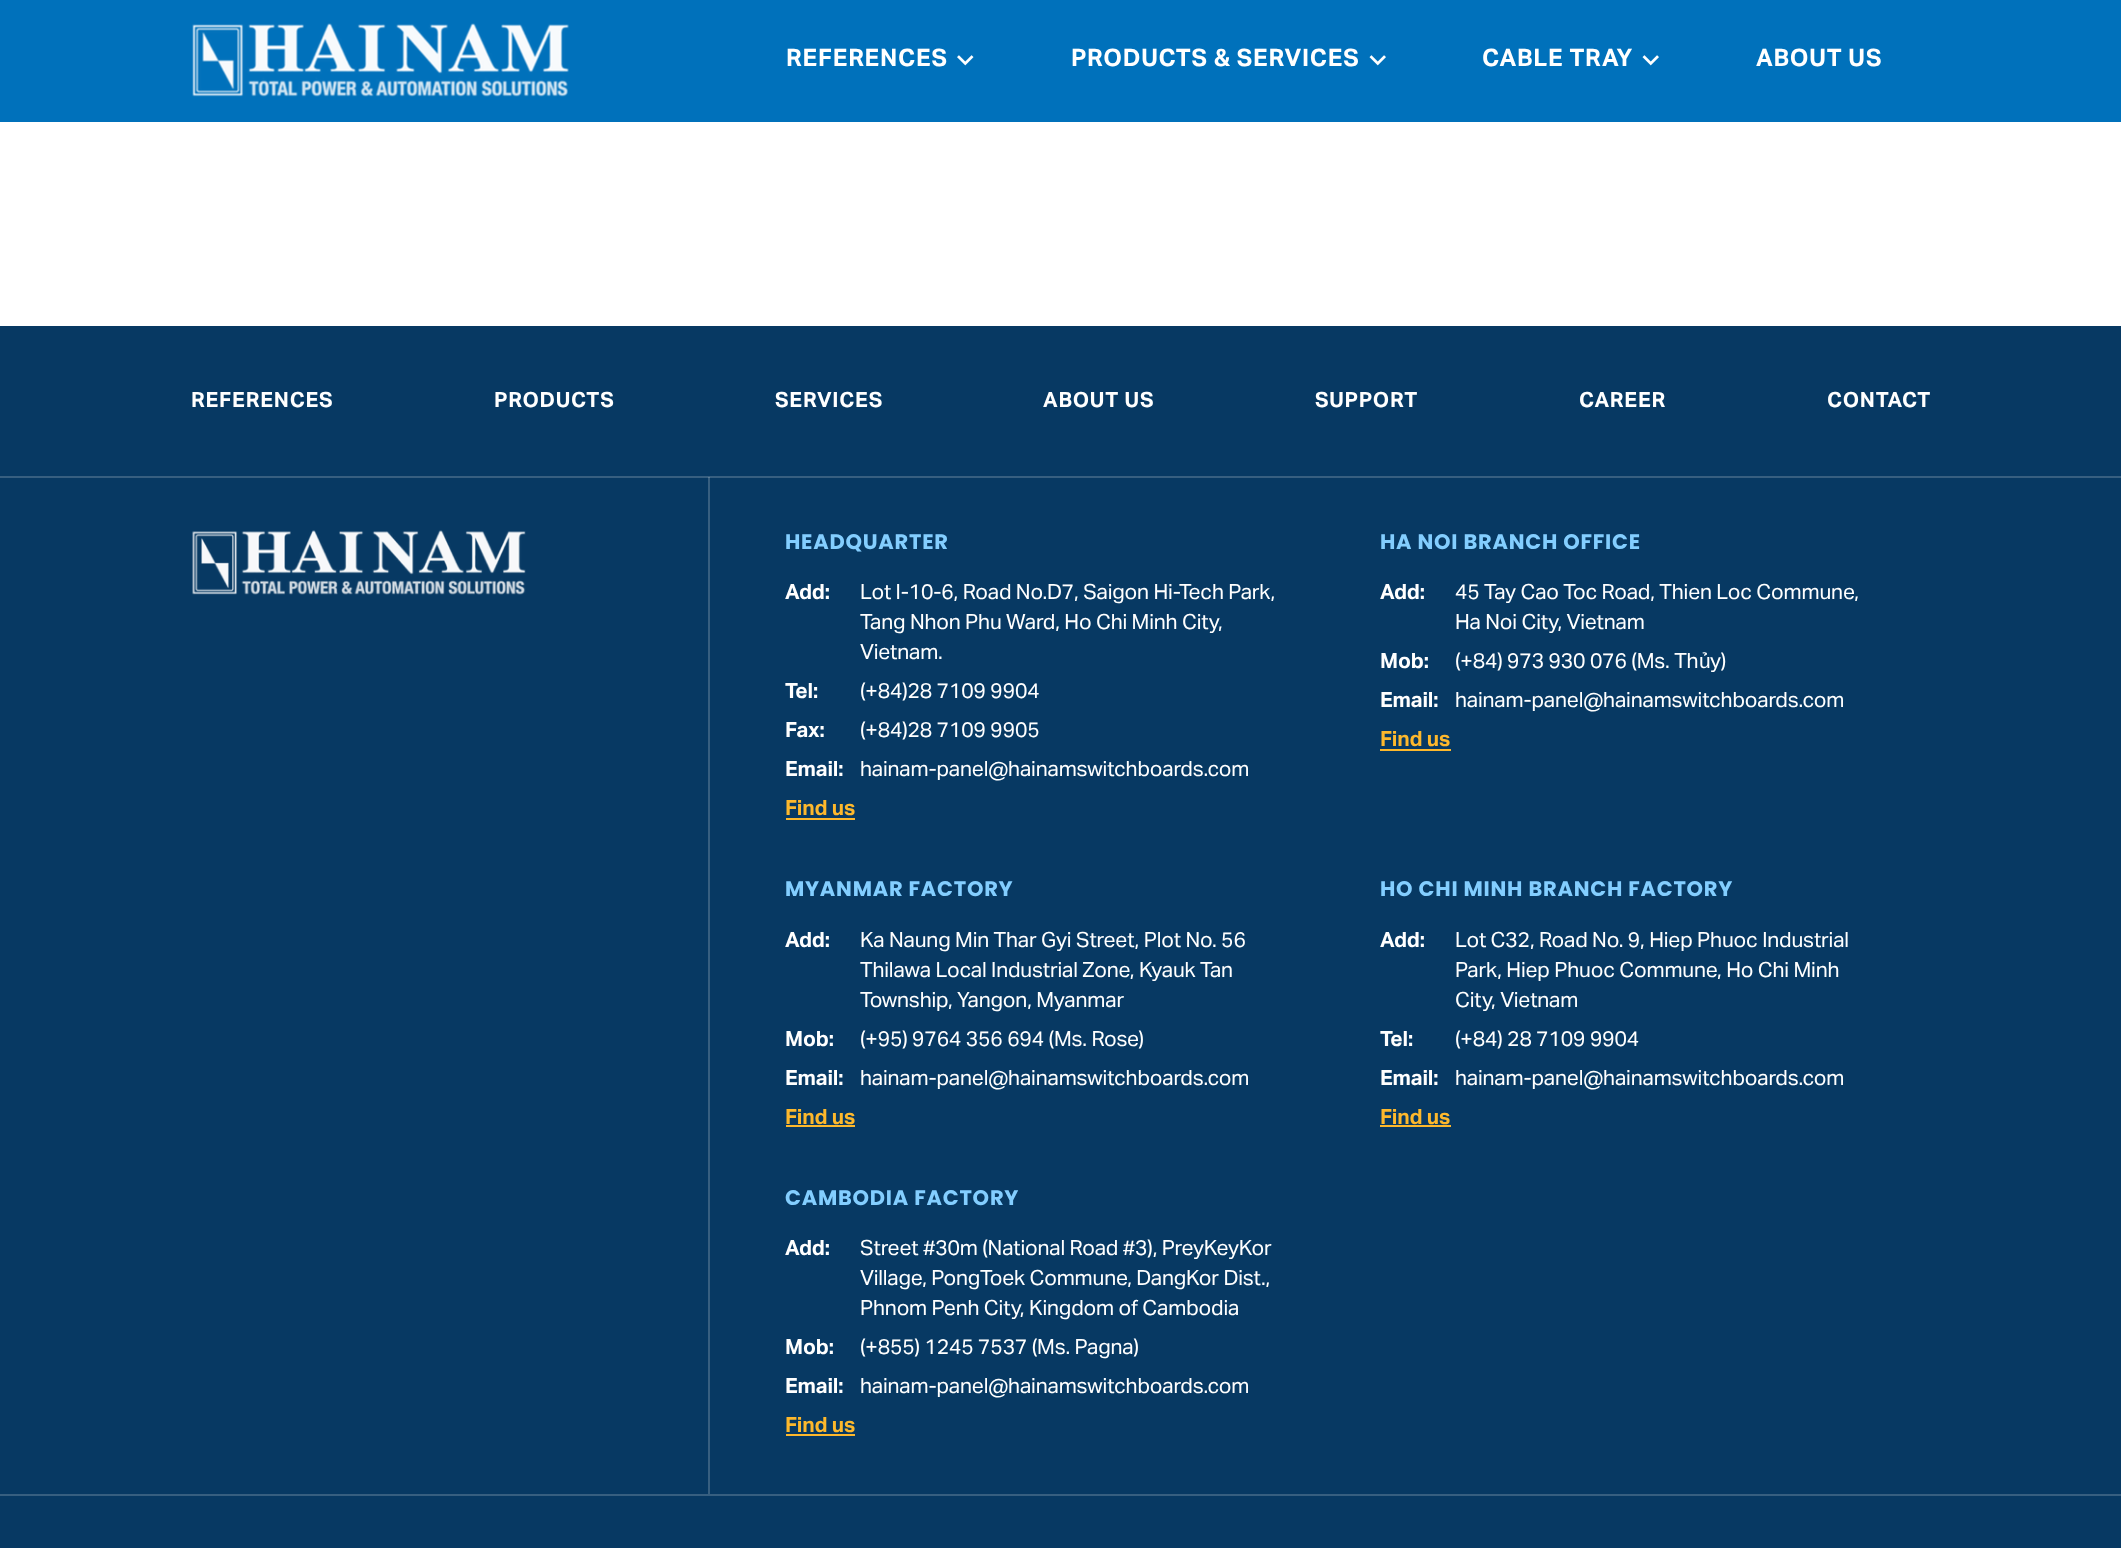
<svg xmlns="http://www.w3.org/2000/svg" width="2121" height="1548">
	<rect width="100%" height="100%" fill="#FFFFFF" />
	<rect x="0" y="0" width="2121" height="122" fill="#0071BB" />
	<image x="192" y="23" width="377" height="74" href="assets/img1.png" />
	<text x="786" y="66" font-family="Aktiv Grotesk" font-size="24" font-weight="700" letter-spacing="0.75" fill="#FFFFFF">REFERENCES</text>
	<image x="957" y="55" width="17" height="11" href="assets/img2.png" />
	<text x="1071" y="66" font-family="Aktiv Grotesk" font-size="24" font-weight="700" letter-spacing="0.75" fill="#FFFFFF">PRODUCTS &amp; SERVICES</text>
	<image x="1369" y="55" width="17" height="11" href="assets/img3.png" />
	<text x="1482" y="66" font-family="Aktiv Grotesk" font-size="24" font-weight="700" letter-spacing="0.75" fill="#FFFFFF">CABLE TRAY</text>
	<image x="1642" y="55" width="17" height="11" href="assets/img3.png" />
	<text x="1756" y="66" font-family="Aktiv Grotesk" font-size="24" font-weight="700" letter-spacing="0.75" fill="#FFFFFF">ABOUT US</text>
	<rect x="0" y="326" width="2121" height="1222" fill="#073963" />
	<rect x="0" y="476" width="2121" height="2" fill="#375F80" />
	<g font-family="Aktiv Grotesk" font-size="21" font-weight="700" letter-spacing="0.75" fill="#FFFFFF">
		<text x="191" y="407">REFERENCES</text>
		<text x="494" y="407">PRODUCTS</text>
		<text x="775" y="407">SERVICES</text>
		<text x="1043" y="407">ABOUT US</text>
		<text x="1315" y="407">SUPPORT</text>
		<text x="1579" y="407">CAREER</text>
		<text x="1827" y="407">CONTACT</text>
	</g>
	<rect x="0" y="1494" width="2121" height="2" fill="#375F80" />
	<image x="192" y="530" width="334" height="65" href="assets/img4.png" />
	<rect x="708" y="477" width="2" height="1017" fill="#375F80" />
	<rect x="708" y="477" width="2" height="1" fill="#5D7D97" />
	<text x="785" y="549" font-family="Poppins" font-size="21" font-weight="700" letter-spacing="0.75" fill="#83CEFF">HEADQUARTER</text>
	<text x="785" y="599" font-family="Aktiv Grotesk" font-size="21" font-weight="700" letter-spacing="-0.15" fill="#FFFFFF">Add:</text>
	<g font-family="Aktiv Grotesk" font-size="21" letter-spacing="-0.15" fill="#FFFFFF">
		<text x="860" y="599">Lot I-10-6, Road No.D7, Saigon Hi-Tech Park,</text>
		<text x="860" y="629">Tang Nhon Phu Ward, Ho Chi Minh City,</text>
		<text x="860" y="659">Vietnam.</text>
	</g>
	<text x="785" y="698" font-family="Aktiv Grotesk" font-size="21" font-weight="700" letter-spacing="-0.15" fill="#FFFFFF">Tel:</text>
	<text x="860" y="698" font-family="Aktiv Grotesk" font-size="21" letter-spacing="-0.15" fill="#FFFFFF">(+84)28 7109 9904</text>
	<text x="785" y="737" font-family="Aktiv Grotesk" font-size="21" font-weight="700" letter-spacing="-0.15" fill="#FFFFFF">Fax:</text>
	<text x="860" y="737" font-family="Aktiv Grotesk" font-size="21" letter-spacing="-0.15" fill="#FFFFFF">(+84)28 7109 9905</text>
	<text x="785" y="776" font-family="Aktiv Grotesk" font-size="21" font-weight="700" letter-spacing="-0.15" fill="#FFFFFF">Email:</text>
	<text x="860" y="776" font-family="Aktiv Grotesk" font-size="21" letter-spacing="-0.15" fill="#FFFFFF">hainam-panel@hainamswitchboards.com</text>
	<text x="785" y="815" font-family="Aktiv Grotesk" font-size="21" font-weight="700" letter-spacing="-0.15" fill="#FDB82C">Find us</text>
	<rect x="786" y="818" width="69" height="2" fill="#FDB82C" />
	<text x="1380" y="549" font-family="Poppins" font-size="21" font-weight="700" letter-spacing="0.75" fill="#83CEFF">HA NOI BRANCH OFFICE</text>
	<text x="1380" y="599" font-family="Aktiv Grotesk" font-size="21" font-weight="700" letter-spacing="-0.15" fill="#FFFFFF">Add:</text>
	<g font-family="Aktiv Grotesk" font-size="21" letter-spacing="-0.15" fill="#FFFFFF">
		<text x="1455" y="599">45 Tay Cao Toc Road, Thien Loc Commune,</text>
		<text x="1455" y="629">Ha Noi City, Vietnam</text>
	</g>
	<text x="1380" y="668" font-family="Aktiv Grotesk" font-size="21" font-weight="700" letter-spacing="-0.15" fill="#FFFFFF">Mob:</text>
	<text x="1455" y="668" font-family="Aktiv Grotesk" font-size="21" letter-spacing="-0.15" fill="#FFFFFF">(+84) 973 930 076 (Ms. Th</text>
	<text x="1699" y="668" font-family="Liberation Sans" font-size="21" letter-spacing="-0.15" fill="#FFFFFF">ủ</text>
	<text x="1710" y="668" font-family="Aktiv Grotesk" font-size="21" letter-spacing="-0.15" fill="#FFFFFF">y)</text>
	<text x="1380" y="707" font-family="Aktiv Grotesk" font-size="21" font-weight="700" letter-spacing="-0.15" fill="#FFFFFF">Email:</text>
	<text x="1455" y="707" font-family="Aktiv Grotesk" font-size="21" letter-spacing="-0.15" fill="#FFFFFF">hainam-panel@hainamswitchboards.com</text>
	<text x="1380" y="746" font-family="Aktiv Grotesk" font-size="21" font-weight="700" letter-spacing="-0.15" fill="#FDB82C">Find us</text>
	<rect x="1380" y="749" width="71" height="2" fill="#FDB82C" />
	<text x="785" y="896" font-family="Poppins" font-size="21" font-weight="700" letter-spacing="0.75" fill="#83CEFF">MYANMAR FACTORY</text>
	<text x="785" y="947" font-family="Aktiv Grotesk" font-size="21" font-weight="700" letter-spacing="-0.15" fill="#FFFFFF">Add:</text>
	<g font-family="Aktiv Grotesk" font-size="21" letter-spacing="-0.15" fill="#FFFFFF">
		<text x="860" y="947">Ka Naung Min Thar Gyi Street, Plot No. 56</text>
		<text x="860" y="977">Thilawa Local Industrial Zone, Kyauk Tan</text>
		<text x="860" y="1007">Township, Yangon, Myanmar</text>
	</g>
	<text x="785" y="1046" font-family="Aktiv Grotesk" font-size="21" font-weight="700" letter-spacing="-0.15" fill="#FFFFFF">Mob:</text>
	<text x="860" y="1046" font-family="Aktiv Grotesk" font-size="21" letter-spacing="-0.15" fill="#FFFFFF">(+95) 9764 356 694 (Ms. Rose)</text>
	<text x="785" y="1085" font-family="Aktiv Grotesk" font-size="21" font-weight="700" letter-spacing="-0.15" fill="#FFFFFF">Email:</text>
	<text x="860" y="1085" font-family="Aktiv Grotesk" font-size="21" letter-spacing="-0.15" fill="#FFFFFF">hainam-panel@hainamswitchboards.com</text>
	<text x="785" y="1124" font-family="Aktiv Grotesk" font-size="21" font-weight="700" letter-spacing="-0.15" fill="#FDB82C">Find us</text>
	<rect x="786" y="1125" width="69" height="2" fill="#FDB82C" />
	<text x="1380" y="896" font-family="Poppins" font-size="21" font-weight="700" letter-spacing="0.75" fill="#83CEFF">HO CHI MINH BRANCH FACTORY</text>
	<text x="1380" y="947" font-family="Aktiv Grotesk" font-size="21" font-weight="700" letter-spacing="-0.15" fill="#FFFFFF">Add:</text>
	<g font-family="Aktiv Grotesk" font-size="21" letter-spacing="-0.15" fill="#FFFFFF">
		<text x="1455" y="947">Lot C32, Road No. 9, Hiep Phuoc Industrial</text>
		<text x="1455" y="977">Park, Hiep Phuoc Commune, Ho Chi Minh</text>
		<text x="1455" y="1007">City, Vietnam</text>
	</g>
	<text x="1380" y="1046" font-family="Aktiv Grotesk" font-size="21" font-weight="700" letter-spacing="-0.15" fill="#FFFFFF">Tel:</text>
	<text x="1455" y="1046" font-family="Aktiv Grotesk" font-size="21" letter-spacing="-0.15" fill="#FFFFFF">(+84) 28 7109 9904</text>
	<text x="1380" y="1085" font-family="Aktiv Grotesk" font-size="21" font-weight="700" letter-spacing="-0.15" fill="#FFFFFF">Email:</text>
	<text x="1455" y="1085" font-family="Aktiv Grotesk" font-size="21" letter-spacing="-0.15" fill="#FFFFFF">hainam-panel@hainamswitchboards.com</text>
	<text x="1380" y="1124" font-family="Aktiv Grotesk" font-size="21" font-weight="700" letter-spacing="-0.15" fill="#FDB82C">Find us</text>
	<rect x="1380" y="1125" width="71" height="2" fill="#FDB82C" />
	<text x="785" y="1205" font-family="Poppins" font-size="21" font-weight="700" letter-spacing="0.75" fill="#83CEFF">CAMBODIA FACTORY</text>
	<text x="785" y="1255" font-family="Aktiv Grotesk" font-size="21" font-weight="700" letter-spacing="-0.15" fill="#FFFFFF">Add:</text>
	<g font-family="Aktiv Grotesk" font-size="21" letter-spacing="-0.15" fill="#FFFFFF">
		<text x="860" y="1255">Street #30m (National Road #3), PreyKeyKor</text>
		<text x="860" y="1285">Village, PongToek Commune, DangKor Dist.,</text>
		<text x="860" y="1315">Phnom Penh City, Kingdom of Cambodia</text>
	</g>
	<text x="785" y="1354" font-family="Aktiv Grotesk" font-size="21" font-weight="700" letter-spacing="-0.15" fill="#FFFFFF">Mob:</text>
	<text x="860" y="1354" font-family="Aktiv Grotesk" font-size="21" letter-spacing="-0.15" fill="#FFFFFF">(+855) 1245 7537 (Ms. Pagna)</text>
	<text x="785" y="1393" font-family="Aktiv Grotesk" font-size="21" font-weight="700" letter-spacing="-0.15" fill="#FFFFFF">Email:</text>
	<text x="860" y="1393" font-family="Aktiv Grotesk" font-size="21" letter-spacing="-0.15" fill="#FFFFFF">hainam-panel@hainamswitchboards.com</text>
	<text x="785" y="1432" font-family="Aktiv Grotesk" font-size="21" font-weight="700" letter-spacing="-0.15" fill="#FDB82C">Find us</text>
	<rect x="786" y="1434" width="69" height="2" fill="#FDB82C" />
</svg>
